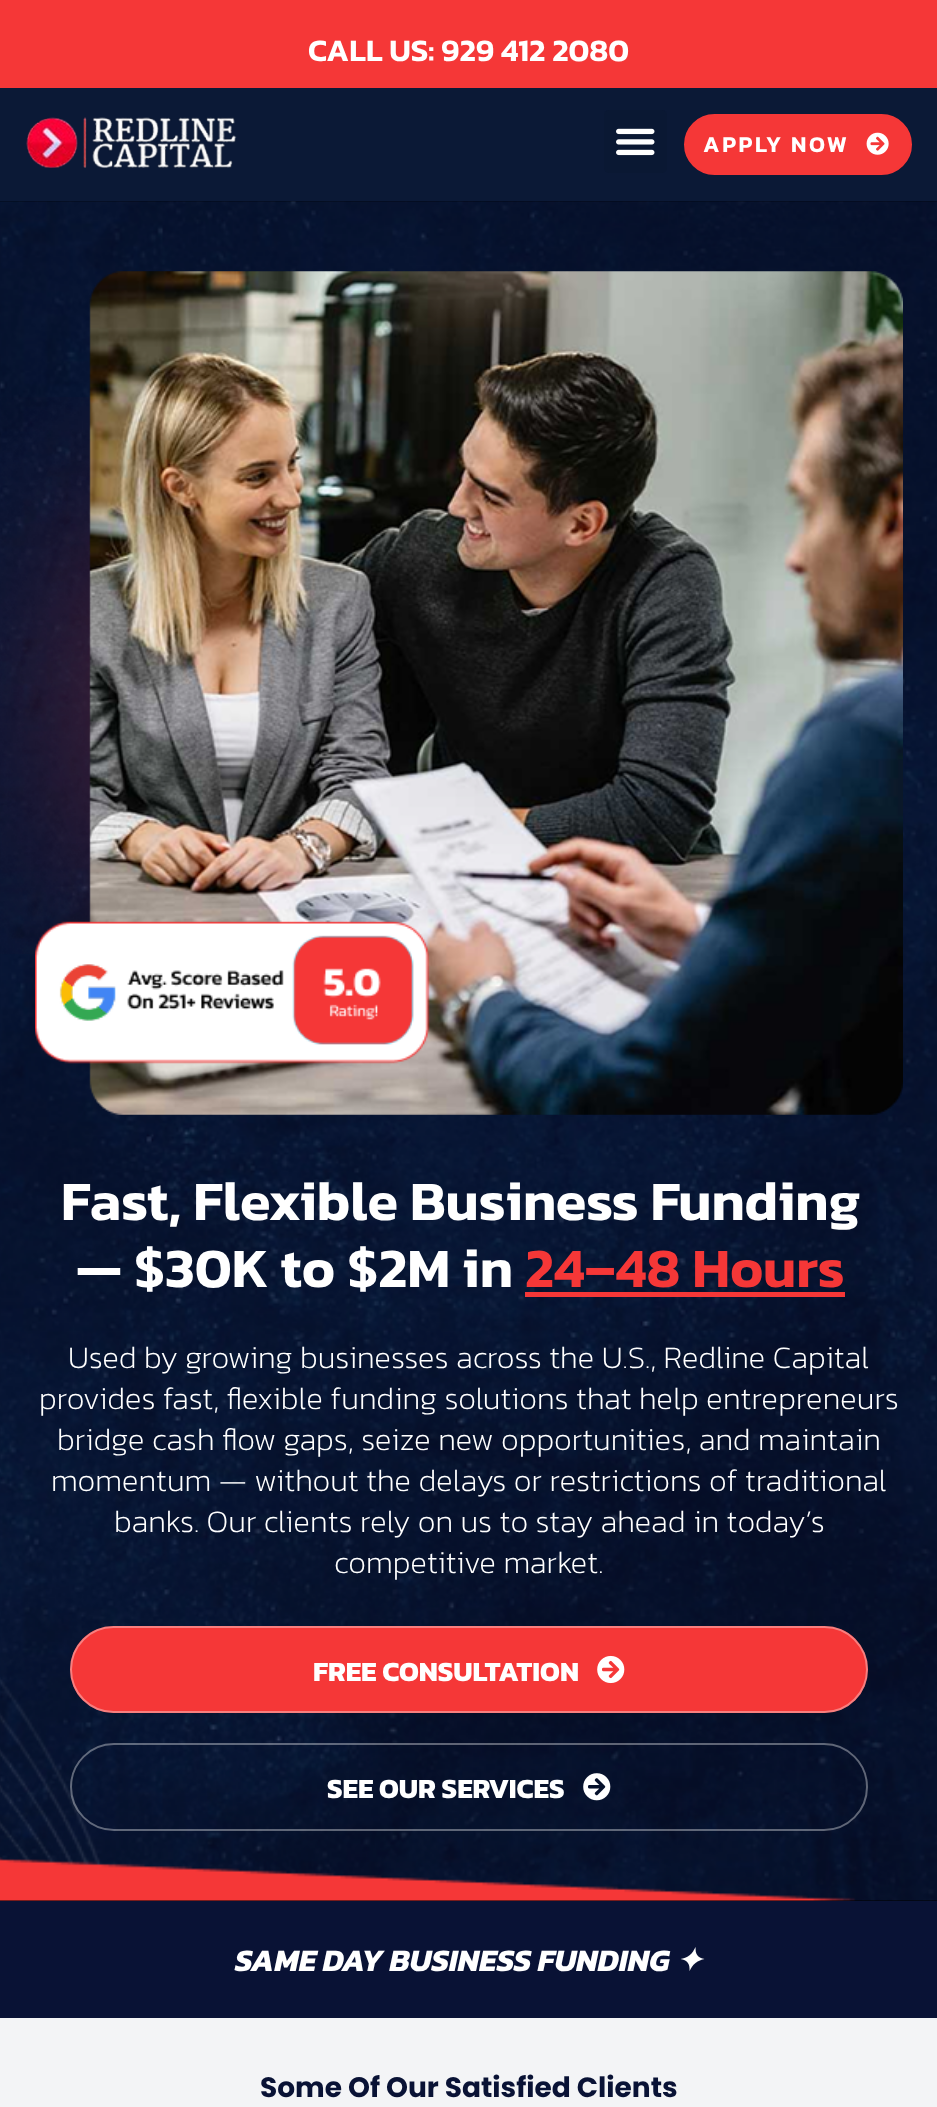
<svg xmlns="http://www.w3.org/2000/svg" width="937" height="2107">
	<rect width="100%" height="100%" fill="#F53737" />
	<text x="308" y="61" font-family="Kanit" font-size="31.5" font-weight="600" fill="#FFFFFF">CALL US: 929 412 2080</text>
	<rect x="0" y="88" width="937" height="113" fill="#0B1936" />
	<image x="26" y="117" width="211" height="52" href="assets/img1.png" />
	<rect x="604" y="110" width="63" height="63" rx="5" fill="#0A1833" />
	<image x="616" y="128" width="39" height="28" href="assets/img2.png" />
	<rect x="685" y="115" width="226" height="59" rx="29.5" fill="#F53737" stroke="#F53737" stroke-width="2" />
	<text x="703" y="152" font-family="Kanit" font-size="22.75" font-weight="600" letter-spacing="2.6" fill="#FFFFFF">APPLY NOW</text>
	<image x="866" y="132" width="23" height="23" href="assets/img3.png" />
	<rect x="0" y="201" width="937" height="1700" fill="#000000" />
	<image x="0" y="201" width="937" height="1700" href="assets/img4.png" />
	<image x="0" y="397" width="91" height="557" href="assets/img6.png" />
	<image x="35" y="271" width="868" height="844" href="assets/img5.png" />
	<g font-family="Kanit" font-size="56" font-weight="600" fill="#FFFFFF">
		<text x="61" y="1220">Fast, Flexible Business Funding</text>
		<text x="76" y="1287">— $30K to $2M in</text>
	</g>
	<text x="525" y="1287" font-family="Kanit" font-size="56" font-weight="600" fill="#F53737">24–48 Hours</text>
	<rect x="525" y="1292" width="320" height="5" fill="#F53737" />
	<g font-family="Kanit" font-size="31.5" font-weight="200" fill="#FFFFFF">
		<text x="68" y="1368">Used by growing businesses across the U.S., Redline Capital</text>
		<text x="39" y="1409">provides fast, flexible funding solutions that help entrepreneurs</text>
		<text x="57" y="1450">bridge cash flow gaps, seize new opportunities, and maintain</text>
		<text x="51" y="1491">momentum — without the delays or restrictions of traditional</text>
		<text x="114" y="1532">banks. Our clients rely on us to stay ahead in today’s</text>
		<text x="334" y="1573">competitive market.</text>
	</g>
	<rect x="70" y="1626" width="798" height="87" rx="43.5" fill="#F53737" />
	<rect x="71" y="1627" width="796" height="85" rx="42.5" fill="none" stroke="#FFFFFF" stroke-opacity="0.36" stroke-width="2" />
	<text x="313" y="1681" font-family="Kanit" font-size="28" font-weight="700" fill="#FFFFFF">FREE CONSULTATION</text>
	<image x="597" y="1655" width="28" height="29" href="assets/img7.png" />
	<rect x="71" y="1744" width="796" height="86" rx="43" fill="none" stroke="#FFFFFF" stroke-opacity="0.36" stroke-width="2" />
	<text x="327" y="1798" font-family="Kanit" font-size="28" font-weight="700" fill="#FFFFFF">SEE OUR SERVICES</text>
	<image x="583" y="1773" width="28" height="28" href="assets/img8.png" />
	<rect x="0" y="1901" width="937" height="117" fill="#091235" />
	<text x="235" y="1971" font-family="Kanit" font-size="31.5" font-weight="700" font-style="italic" fill="#FFFFFF">SAME DAY BUSINESS FUNDING</text>
	<text x="676" y="1971" font-family="DejaVu Sans" font-size="31.5" font-weight="700" font-style="italic" fill="#FFFFFF">✦</text>
	<rect x="0" y="2018" width="937" height="89" fill="#F3F4F6" />
	<text x="260" y="2097" font-family="Poppins" font-size="28" font-weight="700" fill="#091235">Some Of Our Satisfied Clients</text>
</svg>
